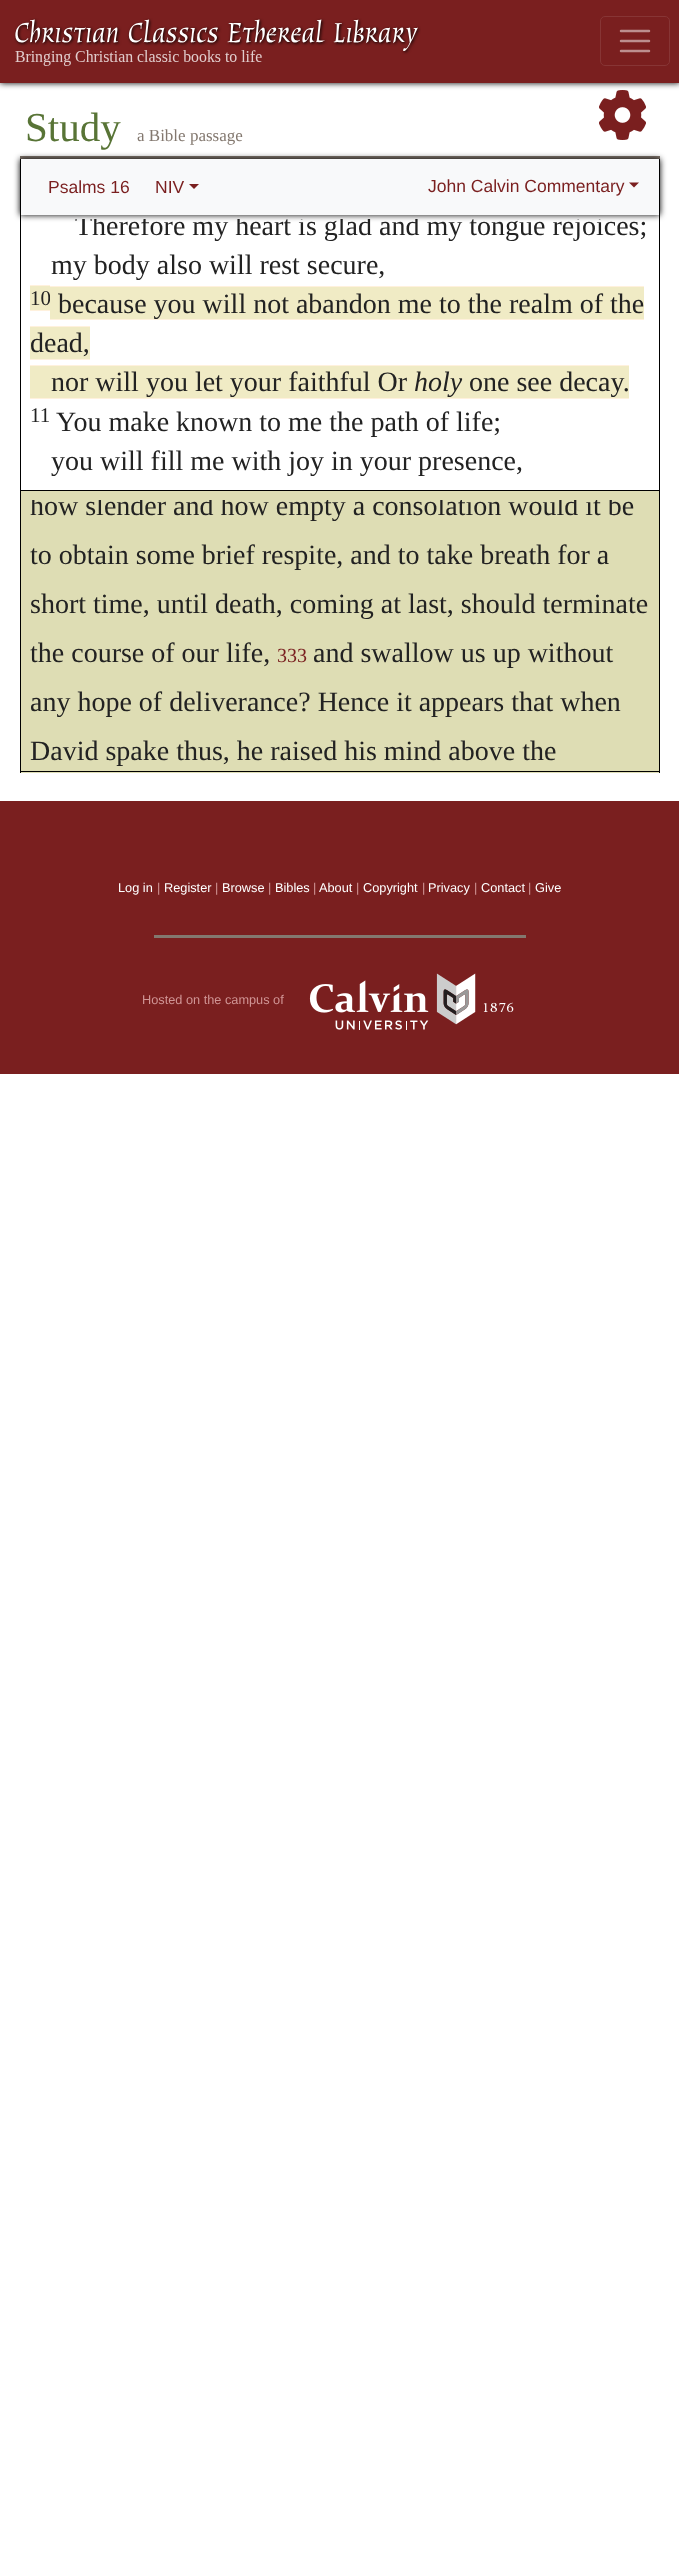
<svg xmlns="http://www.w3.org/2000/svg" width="679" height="2564">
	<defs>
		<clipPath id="clip1"><rect x="30" y="219" width="620" height="271" /></clipPath>
		<clipPath id="clip2"><rect x="30" y="500" width="620" height="271" /></clipPath>
	</defs>
	<rect width="100%" height="100%" fill="#FFFFFF" />
	<image x="599" y="90" width="47" height="50" href="assets/img2.png" />
	<rect x="0" y="0" width="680" height="83" fill="#000000" filter="blur(3px)" />
	<rect x="0" y="0" width="679" height="83" fill="#7A1F1F" />
	<image x="14" y="18" width="407" height="48" href="assets/img1.png" />
	<rect x="600.5" y="16.5" width="69" height="49" rx="4.5" fill="none" stroke="#873535" />
	<path d="M621 31H649M621 41H649M621 51H649" fill="none" stroke="#BD8F8F" stroke-width="2.5" stroke-linecap="round" />
	<rect x="20" y="156" width="640" height="3" fill="#83786F" />
	<text x="25" y="141" font-family="Liberation Serif" font-size="41" fill="#587436">Study</text>
	<text x="137" y="141" font-family="Liberation Serif" font-size="17" fill="#83786F">a Bible passage</text>
	<rect x="659" y="210" width="1" height="563" fill="#000000" />
	<rect x="20" y="490" width="640" height="1" fill="#000000" />
	<rect x="20" y="210" width="1" height="281" fill="#000000" />
	<rect x="20" y="159" width="640" height="56" fill="#000000" filter="blur(3px)" />
	<rect x="21" y="159" width="638" height="56" fill="#F8F9FA" />
	<rect x="659" y="159" width="1" height="56" fill="#000000" />
	<rect x="20" y="159" width="1" height="56" fill="#000000" />
	<g font-family="Liberation Sans" font-size="17.5" fill="#7A1F1F">
		<text x="48" y="193">Psalms 16</text>
		<text x="155" y="193">NIV</text>
	</g>
	<path d="M189 184H199L194 189Z" fill="#7A1F1F" />
	<text x="428" y="192" font-family="Liberation Sans" font-size="17.5" fill="#7A1F1F">John Calvin Commentary</text>
	<path d="M629 182.5H639L634 187.5Z" fill="#7A1F1F" />
	<g clip-path="url(#clip1)">
		<text x="75" y="235" font-family="Liberation Serif" font-size="28" fill="#222222">Therefore my heart is glad and my tongue rejoices;</text>
	</g>
	<text x="51" y="274" font-family="Liberation Serif" font-size="28" fill="#222222">my body also will rest secure,</text>
	<rect x="30" y="286" width="20" height="24" fill="#F0EBC5" />
	<text x="30" y="305" font-family="Liberation Serif" font-size="21" fill="#222222">10</text>
	<rect x="30" y="285" width="20" height="1" fill="#FFF1DD" />
	<rect x="50" y="286" width="594" height="1" fill="#FFF1DD" />
	<rect x="50" y="287" width="594" height="32" fill="#F0EBC5" />
	<rect x="50" y="319" width="594" height="1" fill="#FFF1DD" />
	<text x="58" y="313" font-family="Liberation Serif" font-size="28" fill="#222222">because you will not abandon me to the realm of the</text>
	<rect x="30" y="310" width="20" height="1" fill="#FFF1DD" />
	<rect x="30" y="327" width="60" height="32" fill="#F0EBC5" />
	<text x="30" y="352" font-family="Liberation Serif" font-size="28" fill="#222222">dead,</text>
	<rect x="30" y="326" width="60" height="1" fill="#FFF1DD" />
	<rect x="30" y="359" width="60" height="1" fill="#FFF1DD" />
	<rect x="30" y="366" width="599" height="32" fill="#F0EBC5" />
	<text x="51" y="391" font-family="Liberation Serif" font-size="28" fill="#222222">nor will you let your faithful Or</text>
	<rect x="30" y="365" width="599" height="1" fill="#FFF1DD" />
	<rect x="30" y="398" width="599" height="1" fill="#FFF1DD" />
	<text x="414" y="391" font-family="Liberation Serif" font-size="28" font-style="italic" fill="#222222">holy</text>
	<text x="469" y="391" font-family="Liberation Serif" font-size="28" fill="#222222">one see decay.</text>
	<text x="30" y="422" font-family="Liberation Serif" font-size="21" fill="#222222">11</text>
	<g font-family="Liberation Serif" font-size="28" fill="#222222">
		<text x="56" y="431">You make known to me the path of life;</text>
		<text x="51" y="470">you will fill me with joy in your presence,</text>
	</g>
	<rect x="21" y="491" width="638" height="282" fill="#DEDDB4" />
	<rect x="20" y="771" width="640" height="1" fill="#000000" />
	<rect x="20" y="491" width="1" height="282" fill="#000000" />
	<g clip-path="url(#clip2)">
		<text x="30" y="515" font-family="Liberation Serif" font-size="28" fill="#222222">how slender and how empty a consolation would it be</text>
	</g>
	<g font-family="Liberation Serif" font-size="28" fill="#222222">
		<text x="30" y="564">to obtain some brief respite, and to take breath for a</text>
		<text x="30" y="613">short time, until death, coming at last, should terminate</text>
		<text x="30" y="662">the course of our life,</text>
	</g>
	<text x="277" y="662" font-family="Liberation Serif" font-size="20" fill="#7A1F1F">333</text>
	<g font-family="Liberation Serif" font-size="28" fill="#222222">
		<text x="313" y="662">and swallow us up without</text>
		<text x="30" y="711">any hope of deliverance? Hence it appears that when</text>
		<text x="30" y="760">David spake thus, he raised his mind above the</text>
	</g>
	<rect x="0" y="801" width="679" height="273" fill="#7A1F1F" />
	<text x="118" y="892" font-family="Liberation Sans" font-size="12.75" fill="#FFFFFF">Log in</text>
	<text x="157" y="892" font-family="Liberation Sans" font-size="12.75" fill="#D09595">|</text>
	<text x="164" y="892" font-family="Liberation Sans" font-size="12.75" fill="#FFFFFF">Register</text>
	<text x="215" y="892" font-family="Liberation Sans" font-size="12.75" fill="#D09595">|</text>
	<text x="222" y="892" font-family="Liberation Sans" font-size="12.75" fill="#FFFFFF">Browse</text>
	<text x="268" y="892" font-family="Liberation Sans" font-size="12.75" fill="#D09595">|</text>
	<text x="275" y="892" font-family="Liberation Sans" font-size="12.75" fill="#FFFFFF">Bibles</text>
	<text x="313" y="892" font-family="Liberation Sans" font-size="12.75" fill="#D09595">|</text>
	<text x="319" y="892" font-family="Liberation Sans" font-size="12.75" fill="#FFFFFF">About</text>
	<text x="356" y="892" font-family="Liberation Sans" font-size="12.75" fill="#D09595">|</text>
	<text x="363" y="892" font-family="Liberation Sans" font-size="12.75" fill="#FFFFFF">Copyright</text>
	<text x="422" y="892" font-family="Liberation Sans" font-size="12.75" fill="#D09595">|</text>
	<text x="428" y="892" font-family="Liberation Sans" font-size="12.75" fill="#FFFFFF">Privacy</text>
	<text x="474" y="892" font-family="Liberation Sans" font-size="12.75" fill="#D09595">|</text>
	<text x="481" y="892" font-family="Liberation Sans" font-size="12.75" fill="#FFFFFF">Contact</text>
	<text x="528" y="892" font-family="Liberation Sans" font-size="12.75" fill="#D09595">|</text>
	<text x="535" y="892" font-family="Liberation Sans" font-size="12.75" fill="#FFFFFF">Give</text>
	<rect x="154" y="935" width="372" height="3" fill="#83786F" />
	<text x="142" y="1004" font-family="Liberation Sans" font-size="12.75" fill="#D09595">Hosted on the campus of</text>
	<image x="309" y="973" width="205" height="57" href="assets/img3.png" />
</svg>
